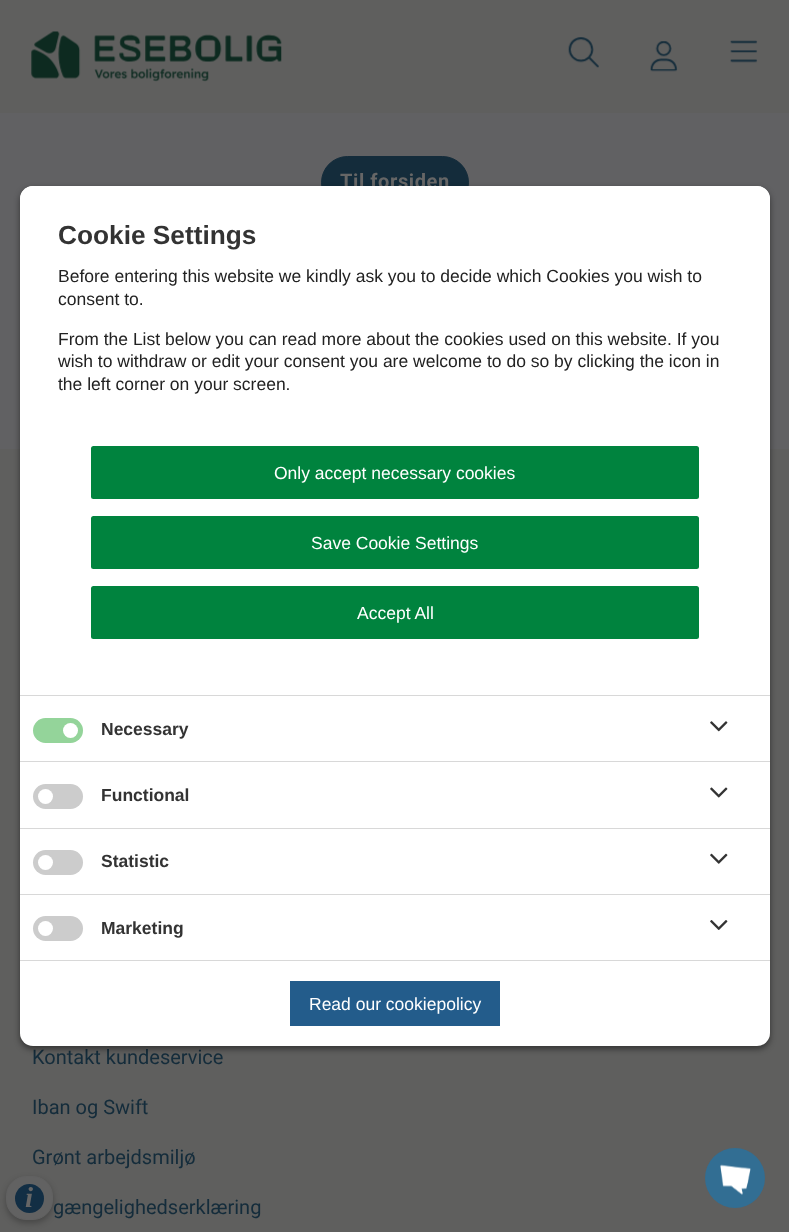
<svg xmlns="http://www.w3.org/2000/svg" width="789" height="1232">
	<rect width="100%" height="100%" fill="#616163" />
	<rect x="0" y="0" width="789" height="113" fill="#5F5F5E" />
	<image x="31" y="31" width="251" height="51" href="assets/img1.png" />
	<image x="568" y="37" width="31" height="31" href="assets/img2.png" />
	<image x="650" y="41" width="28" height="31" href="assets/img3.png" />
	<image x="730" y="40" width="28" height="23" href="assets/img4.png" />
	<rect x="321.5" y="156.5" width="147" height="52" rx="26" fill="#142C3B" stroke="#142C3B" />
	<text x="340" y="188" font-family="Roboto" font-size="20" font-weight="700" letter-spacing="0.6" fill="#666666">Til forsiden</text>
	<rect x="0" y="449" width="789" height="783" fill="#5F5F5E" />
	<g font-family="Roboto" font-size="20" fill="#142C3B">
		<text x="32" y="1064">Kontakt kundeservice</text>
		<text x="32" y="1114">Iban og Swift</text>
		<text x="32" y="1164">Grønt arbejdsmiljø</text>
		<text x="53" y="1214">gængelighedserklæring</text>
	</g>
	<rect x="20" y="189" width="750" height="860" rx="13" fill="#000000" fill-opacity="0.46" filter="blur(3px)" />
	<rect x="20" y="186" width="750" height="860" rx="13" fill="#FFFFFF" />
	<path d="M33 186H757C764 186 770 192 770 199V696H20V199C20 192 26 186 33 186Z" fill="#FFFFFF" />
	<rect x="20" y="695" width="750" height="1" fill="#D8D8D8" />
	<text x="58" y="244" font-family="Liberation Sans" font-size="26.25" font-weight="700" fill="#333333">Cookie Settings</text>
	<g font-family="Liberation Sans" font-size="17.5" fill="#222222">
		<text x="58" y="282">Before entering this website we kindly ask you to decide which Cookies you wish to</text>
		<text x="58" y="305">consent to.</text>
		<text x="58" y="345">From the List below you can read more about the cookies used on this website. If you</text>
		<text x="58" y="367">wish to withdraw or edit your consent you are welcome to do so by clicking the icon in</text>
		<text x="58" y="390">the left corner on your screen.</text>
	</g>
	<rect x="91" y="446" width="608" height="53" rx="2.5" fill="#00833E" />
	<text x="274" y="479" font-family="Liberation Sans" font-size="17.5" fill="#FFFFFF">Only accept necessary cookies</text>
	<rect x="91" y="516" width="608" height="53" rx="2.5" fill="#00833E" />
	<text x="311" y="549" font-family="Liberation Sans" font-size="17.5" fill="#FFFFFF">Save Cookie Settings</text>
	<rect x="91" y="586" width="608" height="53" rx="2.5" fill="#00833E" />
	<text x="357" y="619" font-family="Liberation Sans" font-size="17.5" fill="#FFFFFF">Accept All</text>
	<rect x="20" y="761" width="750" height="1" fill="#D8D8D8" />
	<rect x="33" y="718" width="50" height="25" rx="12.5" fill="#94D49A" />
	<circle cx="70.5" cy="730.5" r="7.5" fill="#FFFFFF" />
	<text x="101" y="735" font-family="Liberation Sans" font-size="17.5" font-weight="700" fill="#333333">Necessary</text>
	<image x="710" y="721" width="18" height="11" href="assets/img5.png" />
	<rect x="20" y="828" width="750" height="1" fill="#D8D8D8" />
	<rect x="33" y="784" width="50" height="25" rx="12.5" fill="#CCCCCC" />
	<circle cx="45.5" cy="796.5" r="7.5" fill="#FFFFFF" />
	<text x="101" y="801" font-family="Liberation Sans" font-size="17.5" font-weight="700" fill="#333333">Functional</text>
	<image x="710" y="787" width="18" height="11" href="assets/img6.png" />
	<rect x="20" y="894" width="750" height="1" fill="#D8D8D8" />
	<rect x="33" y="850" width="50" height="25" rx="12.5" fill="#CCCCCC" />
	<circle cx="45.5" cy="862.5" r="7.5" fill="#FFFFFF" />
	<text x="101" y="867" font-family="Liberation Sans" font-size="17.5" font-weight="700" fill="#333333">Statistic</text>
	<image x="710" y="853" width="18" height="11" href="assets/img7.png" />
	<rect x="20" y="960" width="750" height="1" fill="#D8D8D8" />
	<rect x="33" y="916" width="50" height="25" rx="12.5" fill="#CCCCCC" />
	<circle cx="45.5" cy="928.5" r="7.5" fill="#FFFFFF" />
	<text x="101" y="934" font-family="Liberation Sans" font-size="17.5" font-weight="700" fill="#333333">Marketing</text>
	<image x="710" y="920" width="18" height="10" href="assets/img8.png" />
	<rect x="290" y="981" width="210" height="45" fill="#235C8B" />
	<text x="309" y="1010" font-family="Liberation Sans" font-size="17.5" fill="#FFFFFF">Read our cookiepolicy</text>
	<rect x="6" y="1179" width="47" height="44" rx="20" fill="#000000" fill-opacity="0.26" filter="blur(3px)" />
	<rect x="6.5" y="1176.5" width="46" height="43" rx="19.5" fill="#626262" stroke="#616161" />
	<circle cx="29.5" cy="1198.5" r="14.5" fill="#122E44" />
	<text x="25" y="1207" font-family="Liberation Serif" font-size="29" font-weight="700" font-style="italic" fill="#666666">i</text>
	<circle cx="735" cy="1178" r="30" fill="#326E93" />
	<image x="720" y="1164" width="31" height="31" href="assets/img9.png" />
</svg>
